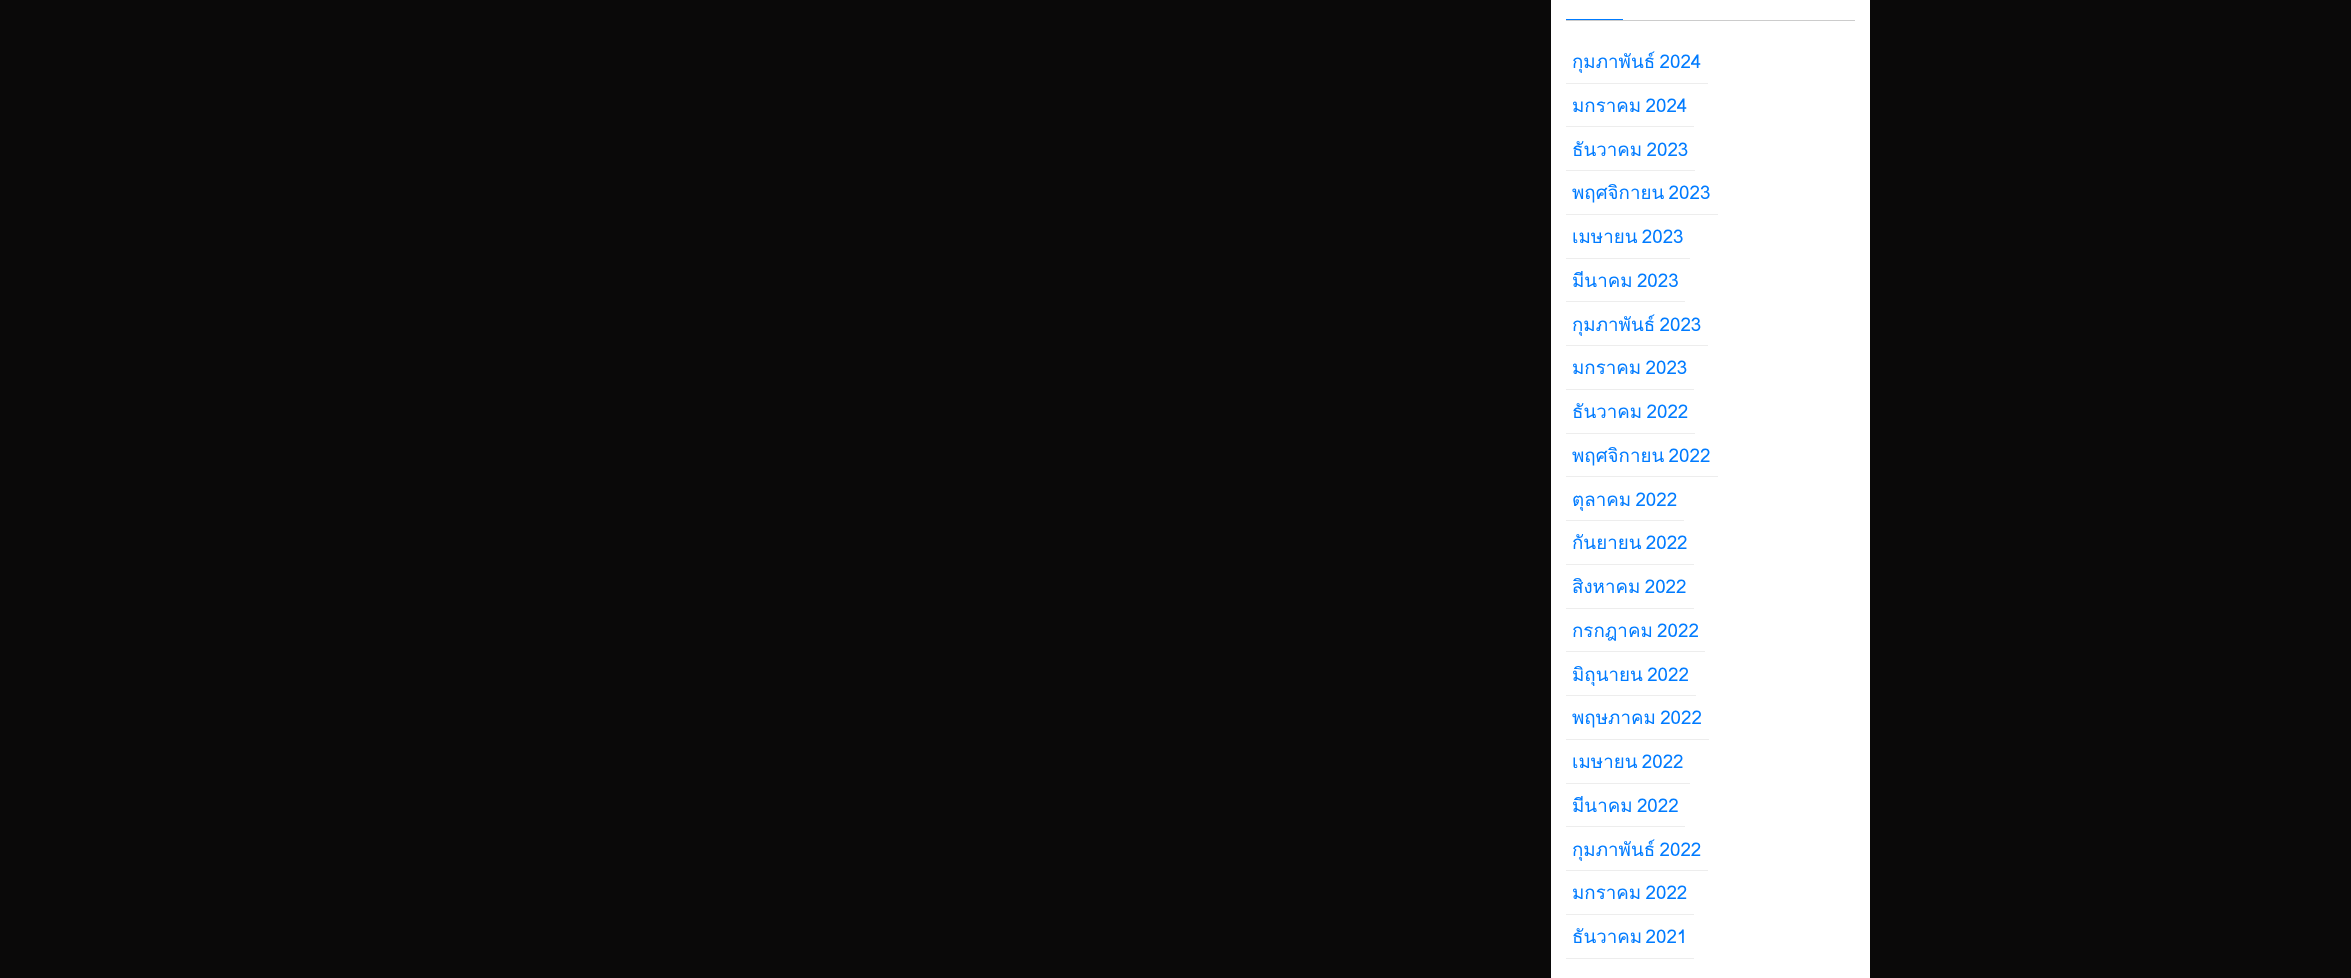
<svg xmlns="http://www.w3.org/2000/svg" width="2351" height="978">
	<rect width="100%" height="100%" fill="#0A0909" />
	<rect x="1551" y="0" width="319" height="978" fill="#FFFFFF" />
	<rect x="1566" y="20" width="289" height="1" fill="#CCCCCC" />
	<rect x="1566" y="19" width="57" height="1" fill="#007BFF" />
	<rect x="1566" y="83" width="142" height="1" fill="#EDEDED" />
	<text x="1572" y="68" word-spacing="-2" font-family="Loma" font-size="18.75" fill="#007BFF">กุมภาพันธ์ 2024</text>
	<rect x="1566" y="126" width="128" height="1" fill="#EDEDED" />
	<text x="1572" y="112" word-spacing="-2" font-family="Loma" font-size="18.75" fill="#007BFF">มกราคม 2024</text>
	<rect x="1566" y="170" width="129" height="1" fill="#EDEDED" />
	<text x="1572" y="156" word-spacing="-2" font-family="Loma" font-size="18.75" fill="#007BFF">ธันวาคม 2023</text>
	<rect x="1566" y="214" width="152" height="1" fill="#EDEDED" />
	<text x="1572" y="199" word-spacing="-2" font-family="Loma" font-size="18.75" fill="#007BFF">พฤศจิกายน 2023</text>
	<rect x="1566" y="258" width="124" height="1" fill="#EDEDED" />
	<text x="1572" y="243" word-spacing="-2" font-family="Loma" font-size="18.75" fill="#007BFF">เมษายน 2023</text>
	<rect x="1566" y="301" width="119" height="1" fill="#EDEDED" />
	<text x="1572" y="287" word-spacing="-2" font-family="Loma" font-size="18.75" fill="#007BFF">มีนาคม 2023</text>
	<rect x="1566" y="345" width="142" height="1" fill="#EDEDED" />
	<text x="1572" y="331" word-spacing="-2" font-family="Loma" font-size="18.75" fill="#007BFF">กุมภาพันธ์ 2023</text>
	<rect x="1566" y="389" width="128" height="1" fill="#EDEDED" />
	<text x="1572" y="374" word-spacing="-2" font-family="Loma" font-size="18.75" fill="#007BFF">มกราคม 2023</text>
	<rect x="1566" y="433" width="129" height="1" fill="#EDEDED" />
	<text x="1572" y="418" word-spacing="-2" font-family="Loma" font-size="18.75" fill="#007BFF">ธันวาคม 2022</text>
	<rect x="1566" y="476" width="152" height="1" fill="#EDEDED" />
	<text x="1572" y="462" word-spacing="-2" font-family="Loma" font-size="18.75" fill="#007BFF">พฤศจิกายน 2022</text>
	<rect x="1566" y="520" width="118" height="1" fill="#EDEDED" />
	<text x="1572" y="506" word-spacing="-2" font-family="Loma" font-size="18.75" fill="#007BFF">ตุลาคม 2022</text>
	<rect x="1566" y="564" width="128" height="1" fill="#EDEDED" />
	<text x="1572" y="549" word-spacing="-2" font-family="Loma" font-size="18.75" fill="#007BFF">กันยายน 2022</text>
	<rect x="1566" y="608" width="128" height="1" fill="#EDEDED" />
	<text x="1572" y="593" word-spacing="-2" font-family="Loma" font-size="18.75" fill="#007BFF">สิงหาคม 2022</text>
	<rect x="1566" y="651" width="139" height="1" fill="#EDEDED" />
	<text x="1572" y="637" word-spacing="-2" font-family="Loma" font-size="18.75" fill="#007BFF">กรกฎาคม 2022</text>
	<rect x="1566" y="695" width="130" height="1" fill="#EDEDED" />
	<text x="1572" y="681" word-spacing="-2" font-family="Loma" font-size="18.75" fill="#007BFF">มิถุนายน 2022</text>
	<rect x="1566" y="739" width="143" height="1" fill="#EDEDED" />
	<text x="1572" y="724" word-spacing="-2" font-family="Loma" font-size="18.75" fill="#007BFF">พฤษภาคม 2022</text>
	<rect x="1566" y="783" width="124" height="1" fill="#EDEDED" />
	<text x="1572" y="768" word-spacing="-2" font-family="Loma" font-size="18.75" fill="#007BFF">เมษายน 2022</text>
	<rect x="1566" y="826" width="119" height="1" fill="#EDEDED" />
	<text x="1572" y="812" word-spacing="-2" font-family="Loma" font-size="18.75" fill="#007BFF">มีนาคม 2022</text>
	<rect x="1566" y="870" width="142" height="1" fill="#EDEDED" />
	<text x="1572" y="856" word-spacing="-2" font-family="Loma" font-size="18.75" fill="#007BFF">กุมภาพันธ์ 2022</text>
	<rect x="1566" y="914" width="128" height="1" fill="#EDEDED" />
	<text x="1572" y="899" word-spacing="-2" font-family="Loma" font-size="18.75" fill="#007BFF">มกราคม 2022</text>
	<rect x="1566" y="958" width="128" height="1" fill="#EDEDED" />
	<text x="1572" y="943" word-spacing="-3" font-family="Loma" font-size="18.75" fill="#007BFF">ธันวาคม 2021</text>
</svg>
